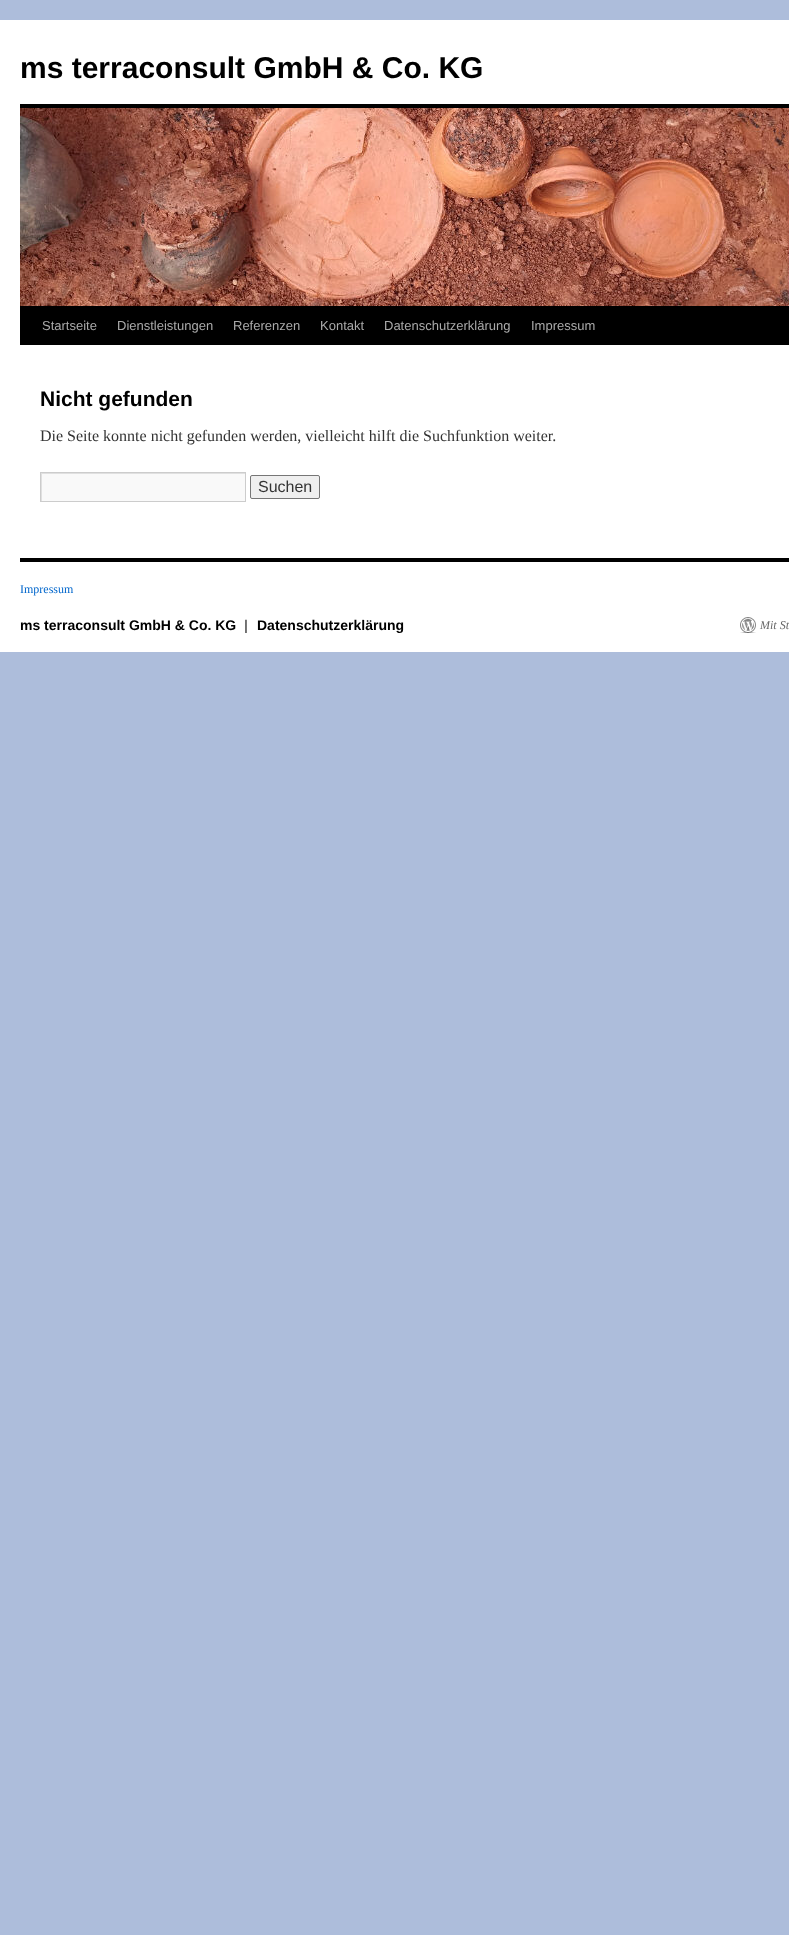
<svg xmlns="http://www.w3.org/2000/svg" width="789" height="1935">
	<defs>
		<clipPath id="clip1"><rect x="41" y="473" width="204" height="28" /></clipPath>
	</defs>
	<rect width="100%" height="100%" fill="#ADBDDB" />
	<rect x="0" y="20" width="789" height="632" fill="#FFFFFF" />
	<text x="20" y="78" font-family="Liberation Sans" font-size="30" font-weight="700" fill="#000000">ms terraconsult GmbH &amp; Co. KG</text>
	<rect x="20" y="104" width="769" height="4" fill="#000000" />
	<rect x="20" y="306" width="769" height="39" fill="#000000" />
	<image x="20" y="108" width="769" height="198" href="assets/img1.png" />
	<g font-family="Liberation Sans" font-size="13" fill="#AAAAAA">
		<text x="42" y="330">Startseite</text>
		<text x="117" y="330">Dienstleistungen</text>
		<text x="233" y="330">Referenzen</text>
		<text x="320" y="330">Kontakt</text>
		<text x="384" y="330">Datenschutzerklärung</text>
		<text x="531" y="330">Impressum</text>
	</g>
	<text x="40" y="406" font-family="Liberation Sans" font-size="21" font-weight="700" fill="#000000">Nicht gefunden</text>
	<text x="40" y="441" font-family="Liberation Serif" font-size="16" fill="#333333">Die Seite konnte nicht gefunden werden, vielleicht hilft die Suchfunktion weiter.</text>
	<rect x="42" y="474" width="203" height="27" fill="#F9F9F9" />
	<g clip-path="url(#clip1)">
		<path d="M-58 374H344V600H-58ZM42 474H246V502H42Z" fill="#E0E0E0" fill-rule="evenodd" />
	</g>
	<rect x="40.5" y="472.5" width="205" height="29" fill="none" stroke="#CCCCCC" />
	<rect x="250.5" y="475.5" width="69" height="23" rx="1.5" fill="#EFEFEF" stroke="#767676" />
	<text x="258" y="492" font-family="Liberation Sans" font-size="16" fill="#333333">Suchen</text>
	<rect x="20" y="558" width="769" height="4" fill="#000000" />
	<text x="20" y="593" font-family="Liberation Serif" font-size="12" fill="#0066CC">Impressum</text>
	<text x="20" y="630" font-family="Liberation Sans" font-size="14" font-weight="700" fill="#000000">ms terraconsult GmbH &amp; Co. KG</text>
	<text x="244" y="630" font-family="Liberation Sans" font-size="14" font-weight="700" fill="#666666">|</text>
	<text x="257" y="630" font-family="Liberation Sans" font-size="14" font-weight="700" fill="#000000">Datenschutzerklärung</text>
	<image x="740" y="617" width="16" height="16" href="assets/img2.png" />
	<text x="760" y="629" font-family="Liberation Serif" font-size="12" font-style="italic" fill="#666666">Mit St</text>
</svg>
